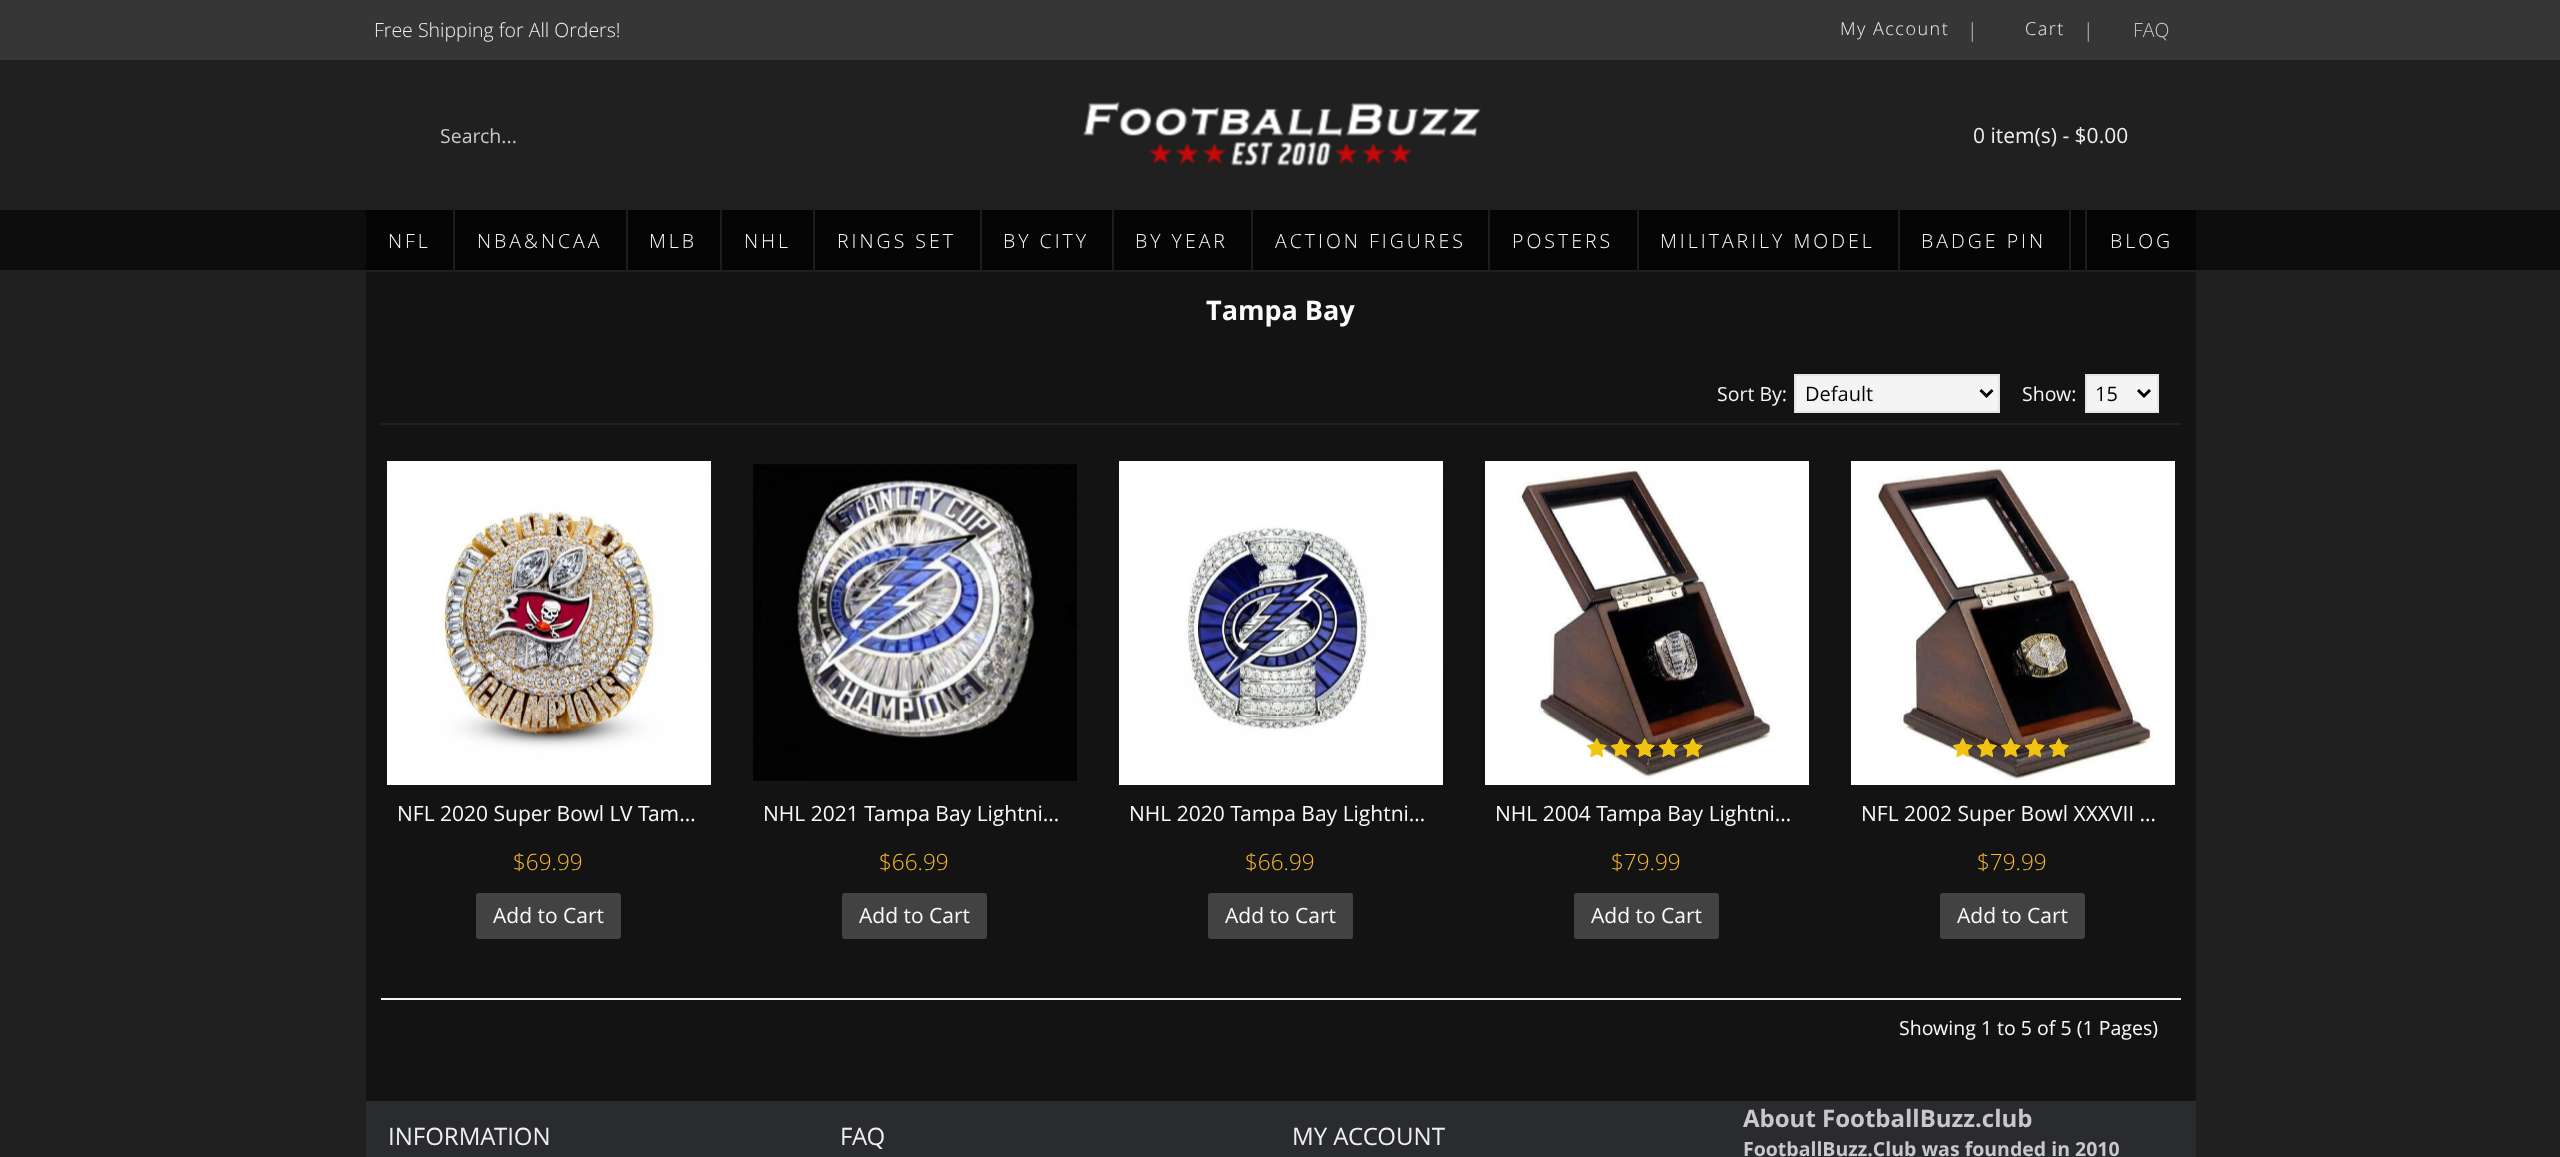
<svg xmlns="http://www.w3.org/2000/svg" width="2560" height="1157">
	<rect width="100%" height="100%" fill="#202020" />
	<rect x="0" y="0" width="2560" height="60" fill="#363636" />
	<text x="374" y="37" font-family="Open Sans" font-size="19.5" font-weight="300" fill="#EEEEEE">Free Shipping for All Orders!</text>
	<text x="1840" y="35" font-family="Open Sans" font-size="18" font-weight="300" letter-spacing="1.5" fill="#EEEEEE">My Account</text>
	<text x="1967" y="37" font-family="Open Sans" font-size="19.5" font-weight="300" fill="#C8C8C8">|</text>
	<text x="2025" y="35" font-family="Open Sans" font-size="18" font-weight="300" letter-spacing="1.5" fill="#EEEEEE">Cart</text>
	<g font-family="Open Sans" font-size="19.5" font-weight="300" fill="#C8C8C8">
		<text x="2083" y="37">|</text>
		<text x="2133" y="37">FAQ</text>
	</g>
	<text x="440" y="143" font-family="Open Sans" font-size="19.5" fill="#C8C8C8">Search...</text>
	<image x="1082" y="101" width="399" height="65" href="assets/img1.png" />
	<text x="1973" y="143" font-family="Open Sans" font-size="21" fill="#EEEEEE">0 item(s) - $0.00</text>
	<rect x="0" y="210" width="2560" height="60" fill="#0D0D0D" />
	<rect x="366" y="210" width="1830" height="60" fill="#000000" fill-opacity="0.6" />
	<rect x="453" y="210" width="2" height="60" fill="#1E1E1E" />
	<text x="388" y="248" font-family="Open Sans" font-size="19.5" font-weight="300" letter-spacing="3" fill="#FAFAFA">NFL</text>
	<rect x="626" y="210" width="2" height="60" fill="#1E1E1E" />
	<text x="477" y="248" font-family="Open Sans" font-size="19.5" font-weight="300" letter-spacing="3" fill="#FAFAFA">NBA&amp;NCAA</text>
	<rect x="720" y="210" width="2" height="60" fill="#1E1E1E" />
	<text x="649" y="248" font-family="Open Sans" font-size="19.5" font-weight="300" letter-spacing="3" fill="#FAFAFA">MLB</text>
	<rect x="813" y="210" width="2" height="60" fill="#1E1E1E" />
	<text x="744" y="248" font-family="Open Sans" font-size="19.5" font-weight="300" letter-spacing="3" fill="#FAFAFA">NHL</text>
	<rect x="980" y="210" width="2" height="60" fill="#1E1E1E" />
	<text x="837" y="248" font-family="Open Sans" font-size="19.5" font-weight="300" letter-spacing="3" fill="#FAFAFA">RINGS SET</text>
	<rect x="1112" y="210" width="2" height="60" fill="#1E1E1E" />
	<text x="1003" y="248" font-family="Open Sans" font-size="19.5" font-weight="300" letter-spacing="3" fill="#FAFAFA">BY CITY</text>
	<rect x="1251" y="210" width="2" height="60" fill="#1E1E1E" />
	<text x="1135" y="248" font-family="Open Sans" font-size="19.5" font-weight="300" letter-spacing="3" fill="#FAFAFA">BY YEAR</text>
	<rect x="1488" y="210" width="2" height="60" fill="#1E1E1E" />
	<text x="1275" y="248" font-family="Open Sans" font-size="19.5" font-weight="300" letter-spacing="3" fill="#FAFAFA">ACTION FIGURES</text>
	<rect x="1637" y="210" width="2" height="60" fill="#1E1E1E" />
	<text x="1512" y="248" font-family="Open Sans" font-size="19.5" font-weight="300" letter-spacing="3" fill="#FAFAFA">POSTERS</text>
	<rect x="1898" y="210" width="2" height="60" fill="#1E1E1E" />
	<text x="1660" y="248" font-family="Open Sans" font-size="19.5" font-weight="300" letter-spacing="3" fill="#FAFAFA">MILITARILY MODEL</text>
	<rect x="2069" y="210" width="2" height="60" fill="#1E1E1E" />
	<text x="1921" y="248" font-family="Open Sans" font-size="19.5" font-weight="300" letter-spacing="3" fill="#FAFAFA">BADGE PIN</text>
	<rect x="2085" y="210" width="2" height="60" fill="#1E1E1E" />
	<text x="2110" y="248" font-family="Open Sans" font-size="19.5" font-weight="300" letter-spacing="3" fill="#FAFAFA">BLOG</text>
	<rect x="366" y="272" width="1830" height="829" fill="#131313" />
	<text x="1206" y="320" font-family="Open Sans" font-size="27" font-weight="700" fill="#FAFAFA">Tampa Bay</text>
	<rect x="381" y="423" width="1800" height="2" fill="#202020" />
	<text x="1717" y="401" font-family="Open Sans" font-size="19.5" fill="#F4F4F4">Sort By:</text>
	<rect x="1795" y="375" width="204" height="37" fill="#F4F4F4" stroke="#E4E4E4" stroke-width="2" />
	<path d="M1980.5 390L1986.5 396L1992.5 390" fill="none" stroke="#000000" stroke-width="3" />
	<text x="1805" y="401" font-family="Open Sans" font-size="20" fill="#000000">Default</text>
	<text x="2022" y="401" font-family="Open Sans" font-size="19.5" fill="#F4F4F4">Show:</text>
	<rect x="2086" y="375" width="72" height="37" fill="#F4F4F4" stroke="#E4E4E4" stroke-width="2" />
	<path d="M2138 390L2144 396L2150 390" fill="none" stroke="#000000" stroke-width="3" />
	<text x="2095" y="401" font-family="Open Sans" font-size="20" fill="#000000">15</text>
	<image x="387" y="461" width="324" height="324" href="assets/img2.png" />
	<text x="397" y="821" font-family="Open Sans" font-size="21" fill="#FAFAFA">NFL 2020 Super Bowl LV Tam…</text>
	<text x="513" y="870" font-family="Open Sans" font-size="22.5" font-weight="300" fill="#FDBB31">$69.99</text>
	<rect x="476" y="893" width="145" height="46" rx="3" fill="#424242" />
	<text x="493" y="923" font-family="Open Sans" font-size="21" fill="#FAFAFA">Add to Cart</text>
	<image x="753" y="464" width="324" height="317" href="assets/img3.png" />
	<text x="763" y="821" font-family="Open Sans" font-size="21" fill="#FAFAFA">NHL 2021 Tampa Bay Lightni…</text>
	<text x="879" y="870" font-family="Open Sans" font-size="22.5" font-weight="300" fill="#FDBB31">$66.99</text>
	<rect x="842" y="893" width="145" height="46" rx="3" fill="#424242" />
	<text x="859" y="923" font-family="Open Sans" font-size="21" fill="#FAFAFA">Add to Cart</text>
	<image x="1119" y="461" width="324" height="324" href="assets/img4.png" />
	<text x="1129" y="821" font-family="Open Sans" font-size="21" fill="#FAFAFA">NHL 2020 Tampa Bay Lightni…</text>
	<text x="1245" y="870" font-family="Open Sans" font-size="22.5" font-weight="300" fill="#FDBB31">$66.99</text>
	<rect x="1208" y="893" width="145" height="46" rx="3" fill="#424242" />
	<text x="1225" y="923" font-family="Open Sans" font-size="21" fill="#FAFAFA">Add to Cart</text>
	<image x="1485" y="461" width="324" height="324" href="assets/img5.png" />
	<image x="1587" y="738" width="20" height="19" href="assets/img6.png" />
	<image x="1587" y="738" width="20" height="19" href="assets/img7.png" />
	<image x="1611" y="738" width="20" height="19" href="assets/img8.png" />
	<image x="1611" y="738" width="20" height="19" href="assets/img9.png" />
	<image x="1635" y="738" width="20" height="19" href="assets/img10.png" />
	<image x="1635" y="738" width="20" height="19" href="assets/img11.png" />
	<image x="1659" y="738" width="20" height="19" href="assets/img12.png" />
	<image x="1659" y="738" width="20" height="19" href="assets/img13.png" />
	<image x="1683" y="738" width="20" height="19" href="assets/img14.png" />
	<image x="1683" y="738" width="20" height="19" href="assets/img15.png" />
	<text x="1495" y="821" font-family="Open Sans" font-size="21" fill="#FAFAFA">NHL 2004 Tampa Bay Lightni…</text>
	<text x="1611" y="870" font-family="Open Sans" font-size="22.5" font-weight="300" fill="#FDBB31">$79.99</text>
	<rect x="1574" y="893" width="145" height="46" rx="3" fill="#424242" />
	<text x="1591" y="923" font-family="Open Sans" font-size="21" fill="#FAFAFA">Add to Cart</text>
	<image x="1851" y="461" width="324" height="324" href="assets/img16.png" />
	<image x="1953" y="738" width="20" height="19" href="assets/img17.png" />
	<image x="1953" y="738" width="20" height="19" href="assets/img18.png" />
	<image x="1977" y="738" width="20" height="19" href="assets/img19.png" />
	<image x="1977" y="738" width="20" height="19" href="assets/img20.png" />
	<image x="2001" y="738" width="20" height="19" href="assets/img21.png" />
	<image x="2001" y="738" width="20" height="19" href="assets/img22.png" />
	<image x="2025" y="738" width="20" height="19" href="assets/img23.png" />
	<image x="2025" y="738" width="20" height="19" href="assets/img24.png" />
	<image x="2049" y="738" width="20" height="19" href="assets/img25.png" />
	<image x="2049" y="738" width="20" height="19" href="assets/img26.png" />
	<text x="1861" y="821" font-family="Open Sans" font-size="21" fill="#FAFAFA">NFL 2002 Super Bowl XXXVII …</text>
	<text x="1977" y="870" font-family="Open Sans" font-size="22.5" font-weight="300" fill="#FDBB31">$79.99</text>
	<rect x="1940" y="893" width="145" height="46" rx="3" fill="#424242" />
	<text x="1957" y="923" font-family="Open Sans" font-size="21" fill="#FAFAFA">Add to Cart</text>
	<rect x="381" y="998" width="1800" height="2" fill="#F4F4F4" />
	<text x="1899" y="1035" font-family="Open Sans" font-size="19.5" fill="#FAFAFA">Showing 1 to 5 of 5 (1 Pages)</text>
	<rect x="366" y="1101" width="1830" height="56" fill="#2A2B2E" />
	<g font-family="Open Sans" font-size="24" fill="#EEEEEE">
		<text x="388" y="1145">INFORMATION</text>
		<text x="840" y="1145">FAQ</text>
		<text x="1292" y="1145">MY ACCOUNT</text>
	</g>
	<text x="1743" y="1127" font-family="Open Sans" font-size="24" font-weight="700" fill="#C8C8C8">About FootballBuzz.club</text>
	<text x="1743" y="1156" font-family="Open Sans" font-size="19.5" font-weight="700" fill="#C8C8C8">FootballBuzz.Club was founded in 2010</text>
</svg>
